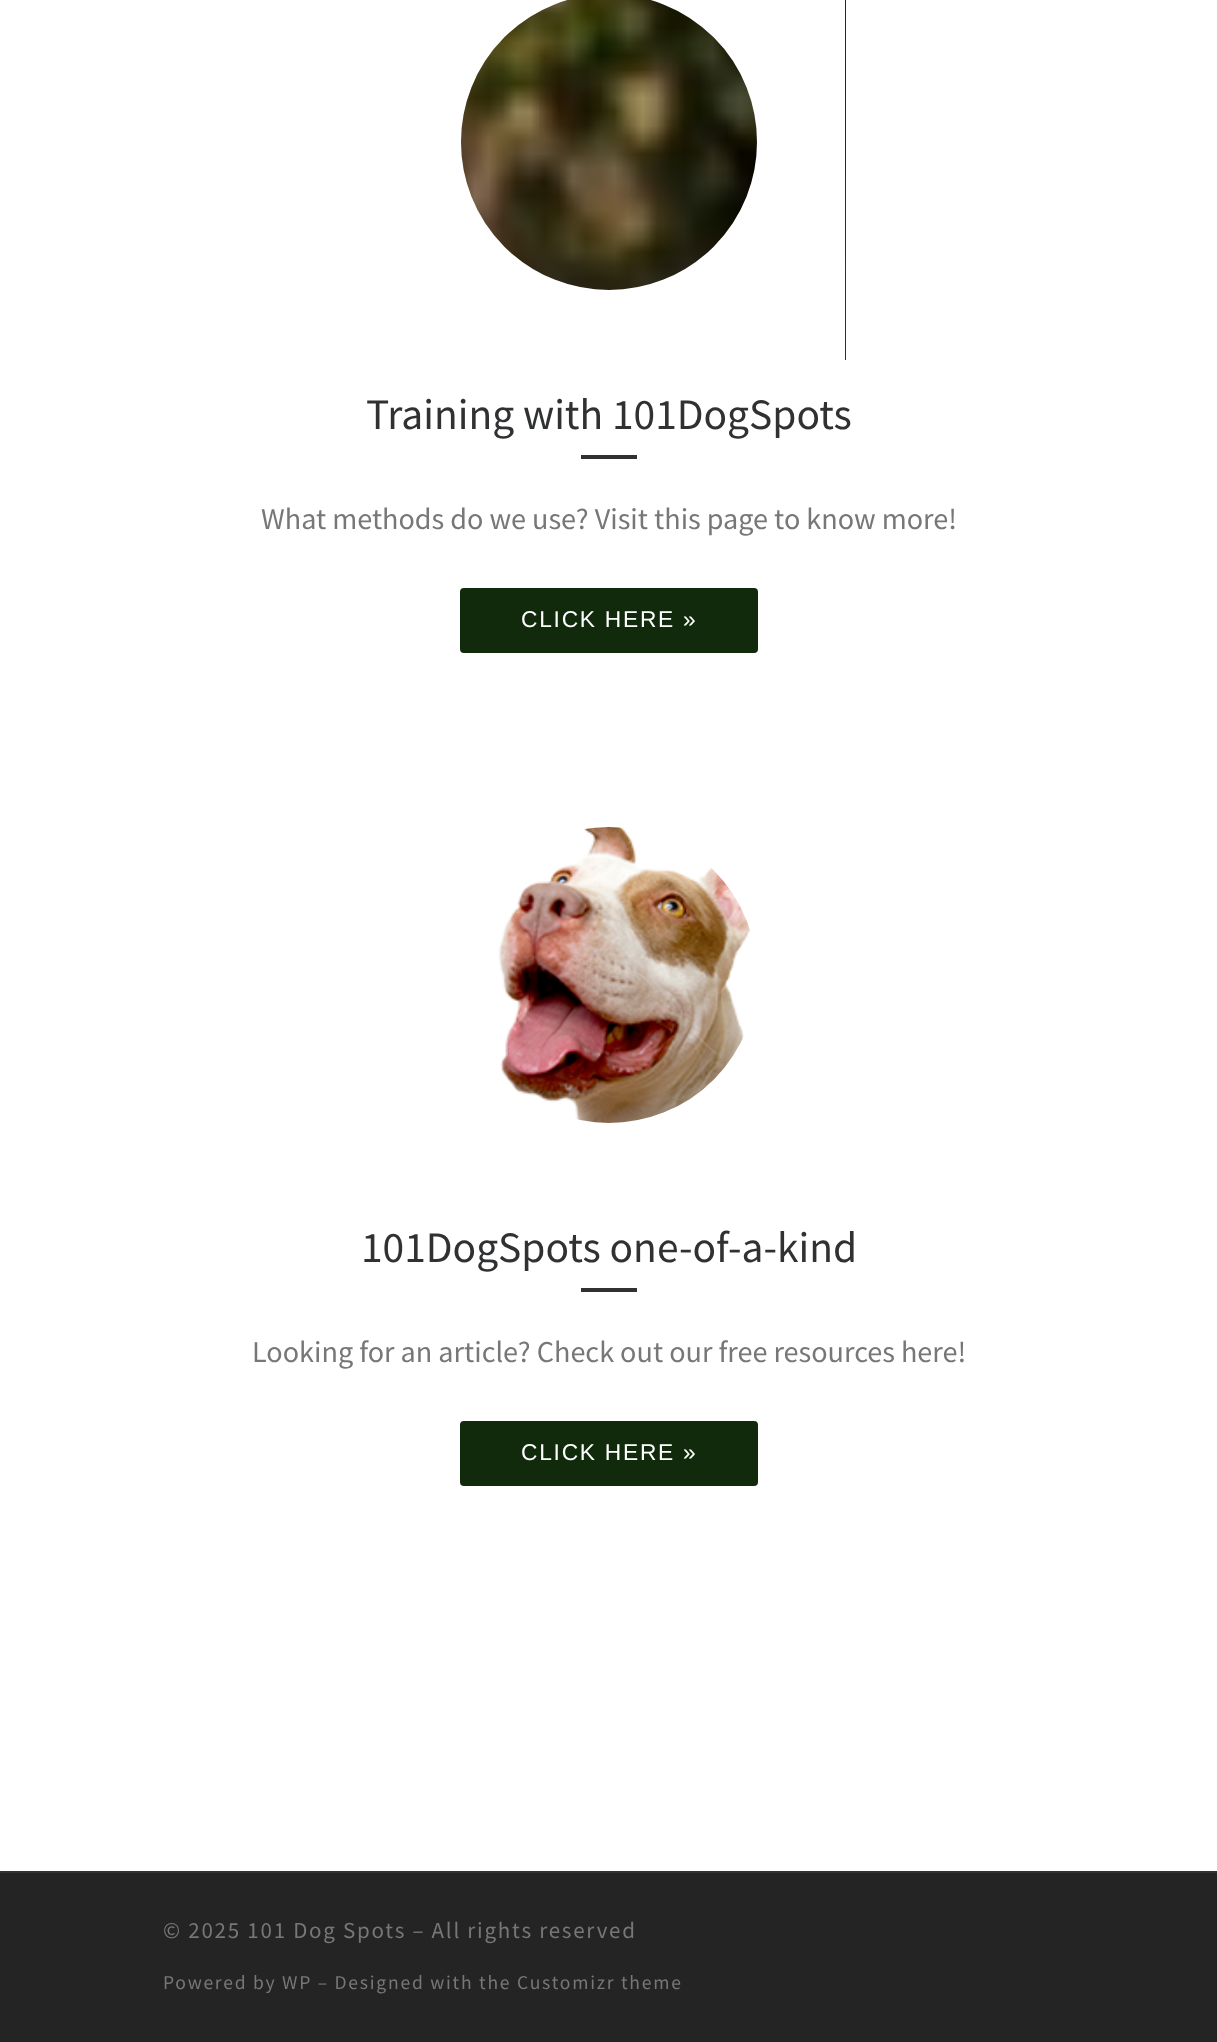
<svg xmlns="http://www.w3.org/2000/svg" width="1217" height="2042">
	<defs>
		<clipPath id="clip1"><rect x="373" y="0" width="472" height="361" /></clipPath>
		<clipPath id="clip2"><rect x="373" y="756" width="472" height="438" /></clipPath>
	</defs>
	<rect width="100%" height="100%" fill="#FFFFFF" />
	<image x="461" y="0" width="385" height="360" href="assets/img1.png" />
	<text x="261" y="529" font-family="Source Sans Pro" font-size="30.2" fill="#777777">What methods do we use? Visit this page to know more!</text>
	<g clip-path="url(#clip1)">
		<circle cx="609" cy="142" r="279.5" fill="none" stroke="#FFFFFF" stroke-width="263" />
	</g>
	<text x="366" y="429" font-family="Source Sans Pro" font-size="43.5" fill="#303133">Training with 101DogSpots</text>
	<rect x="581" y="455" width="56" height="4" fill="#313131" />
	<rect x="462" y="590" width="294" height="61" rx="2" fill="#112A0B" stroke="#112A0B" stroke-width="4" />
	<text x="521" y="627" font-family="Liberation Sans" font-size="22.75" letter-spacing="1.75" fill="#FFFFFF">CLICK HERE »</text>
	<image x="498" y="827" width="259" height="296" href="assets/img2.png" />
	<text x="252" y="1362" font-family="Source Sans Pro" font-size="30.2" fill="#777777">Looking for an article? Check out our free resources here!</text>
	<g clip-path="url(#clip2)">
		<circle cx="609" cy="975" r="279.5" fill="none" stroke="#FFFFFF" stroke-width="263" />
	</g>
	<text x="361" y="1262" font-family="Source Sans Pro" font-size="43.5" fill="#303133">101DogSpots one-of-a-kind</text>
	<rect x="581" y="1288" width="56" height="4" fill="#313131" />
	<rect x="462" y="1423" width="294" height="61" rx="2" fill="#112A0B" stroke="#112A0B" stroke-width="4" />
	<text x="521" y="1460" font-family="Liberation Sans" font-size="22.75" letter-spacing="1.75" fill="#FFFFFF">CLICK HERE »</text>
	<rect x="0" y="1871" width="1217" height="2" fill="#313131" />
	<rect x="0" y="1873" width="1217" height="169" fill="#242424" />
	<text x="163" y="1938" font-family="Source Sans Pro" font-size="23" letter-spacing="1.75" fill="#777777">© 2025 101 Dog Spots – All rights reserved</text>
	<text x="163" y="1989" font-family="Source Sans Pro" font-size="19.6" letter-spacing="1.75" fill="#777777">Powered by WP – Designed with the Customizr theme</text>
</svg>
